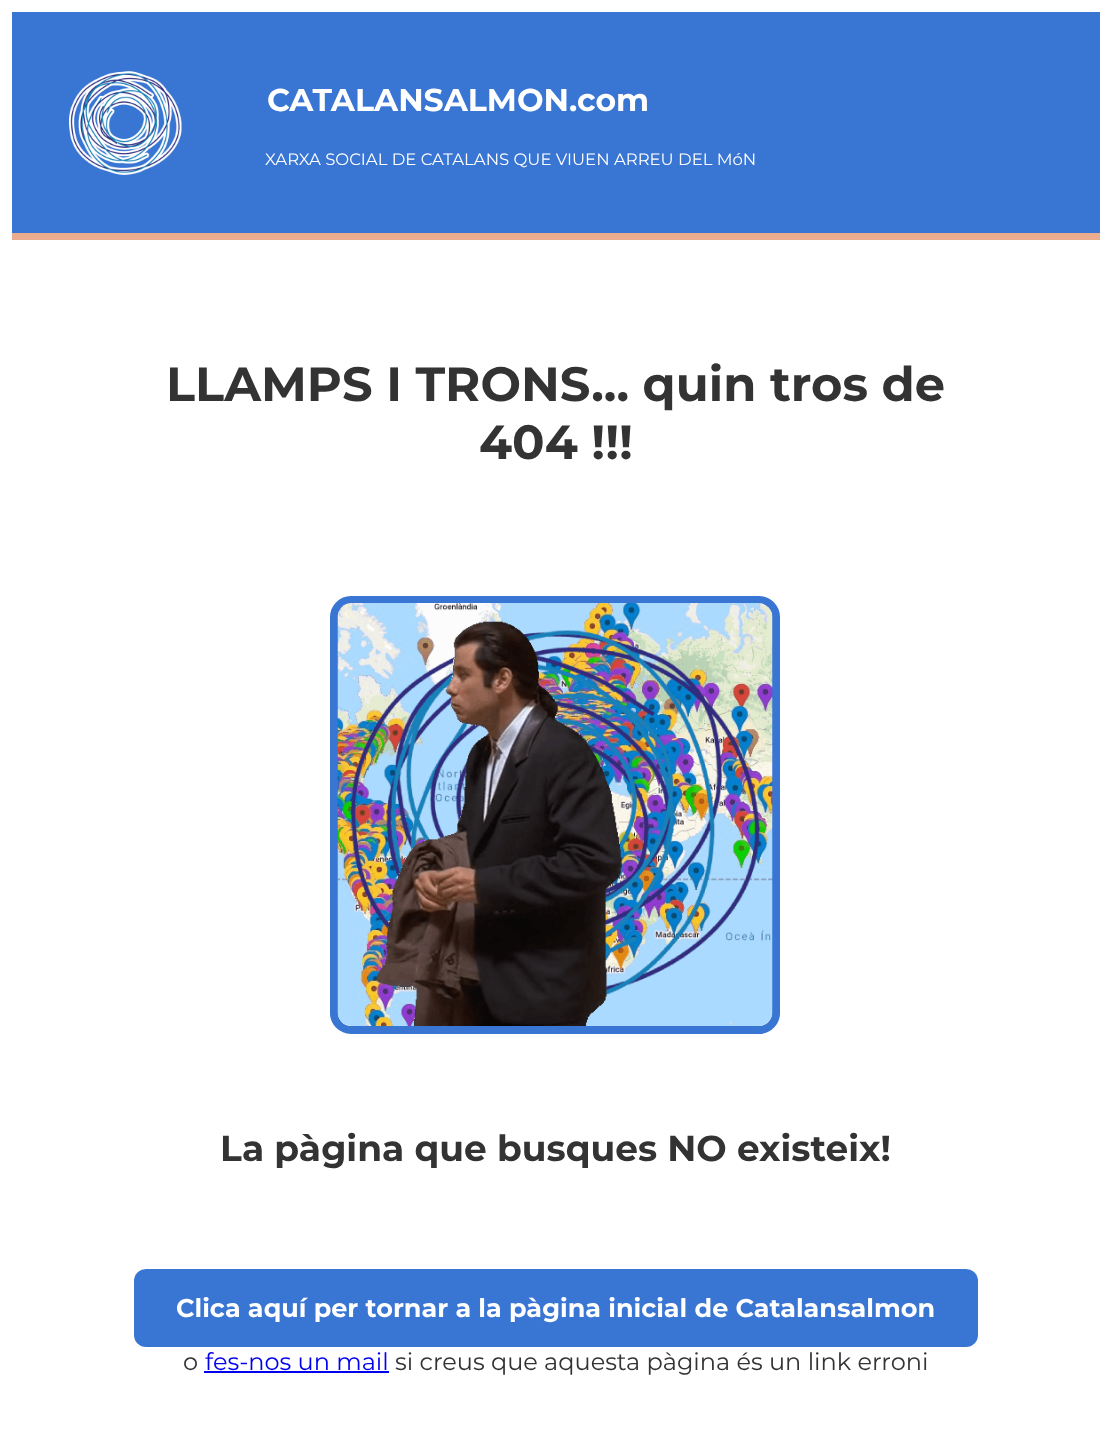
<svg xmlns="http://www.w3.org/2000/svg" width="1111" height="1430">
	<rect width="100%" height="100%" fill="#FFFFFF" />
	<rect x="12" y="12" width="1088" height="221" fill="#3975D3" />
	<rect x="12" y="233" width="1088" height="7" fill="#EBAD8E" />
	<image x="69" y="71" width="113" height="104" href="assets/img1.png" />
	<text x="267" y="111" font-family="Montserrat" font-size="31.5" font-weight="700" fill="#FFFFFF">CATALANSALMON.com</text>
	<text x="265" y="165" font-family="Montserrat" font-size="16.5" fill="#FFFFFF">XARXA SOCIAL DE CATALANS QUE VIUEN ARREU DEL MóN</text>
	<g font-family="Montserrat" font-size="48" font-weight="700" fill="#333333">
		<text x="166" y="401">LLAMPS I TRONS... quin tros de</text>
		<text x="479" y="459">404 !!!</text>
	</g>
	<rect x="334" y="600" width="442" height="430" rx="17" fill="none" stroke="#3975D3" stroke-width="8" />
	<image x="337" y="603" width="436" height="423" href="assets/img2.png" />
	<text x="220" y="1161" font-family="Montserrat" font-size="36" font-weight="700" fill="#333333">La pàgina que busques NO existeix!</text>
	<rect x="134" y="1269" width="844" height="78" rx="12" fill="#3975D3" />
	<text x="176" y="1317" font-family="Montserrat" font-size="25.5" font-weight="700" fill="#FFFFFF">Clica aquí per tornar a la pàgina inicial de Catalansalmon</text>
	<text x="183" y="1370" font-family="Montserrat" font-size="24" fill="#333333">o</text>
	<text x="205" y="1370" font-family="Montserrat" font-size="24" fill="#0000EE">fes-nos un mail</text>
	<rect x="204" y="1371" width="185" height="2" fill="#0000EE" />
	<text x="395" y="1370" font-family="Montserrat" font-size="24" fill="#333333">si creus que aquesta pàgina és un link erroni</text>
</svg>
